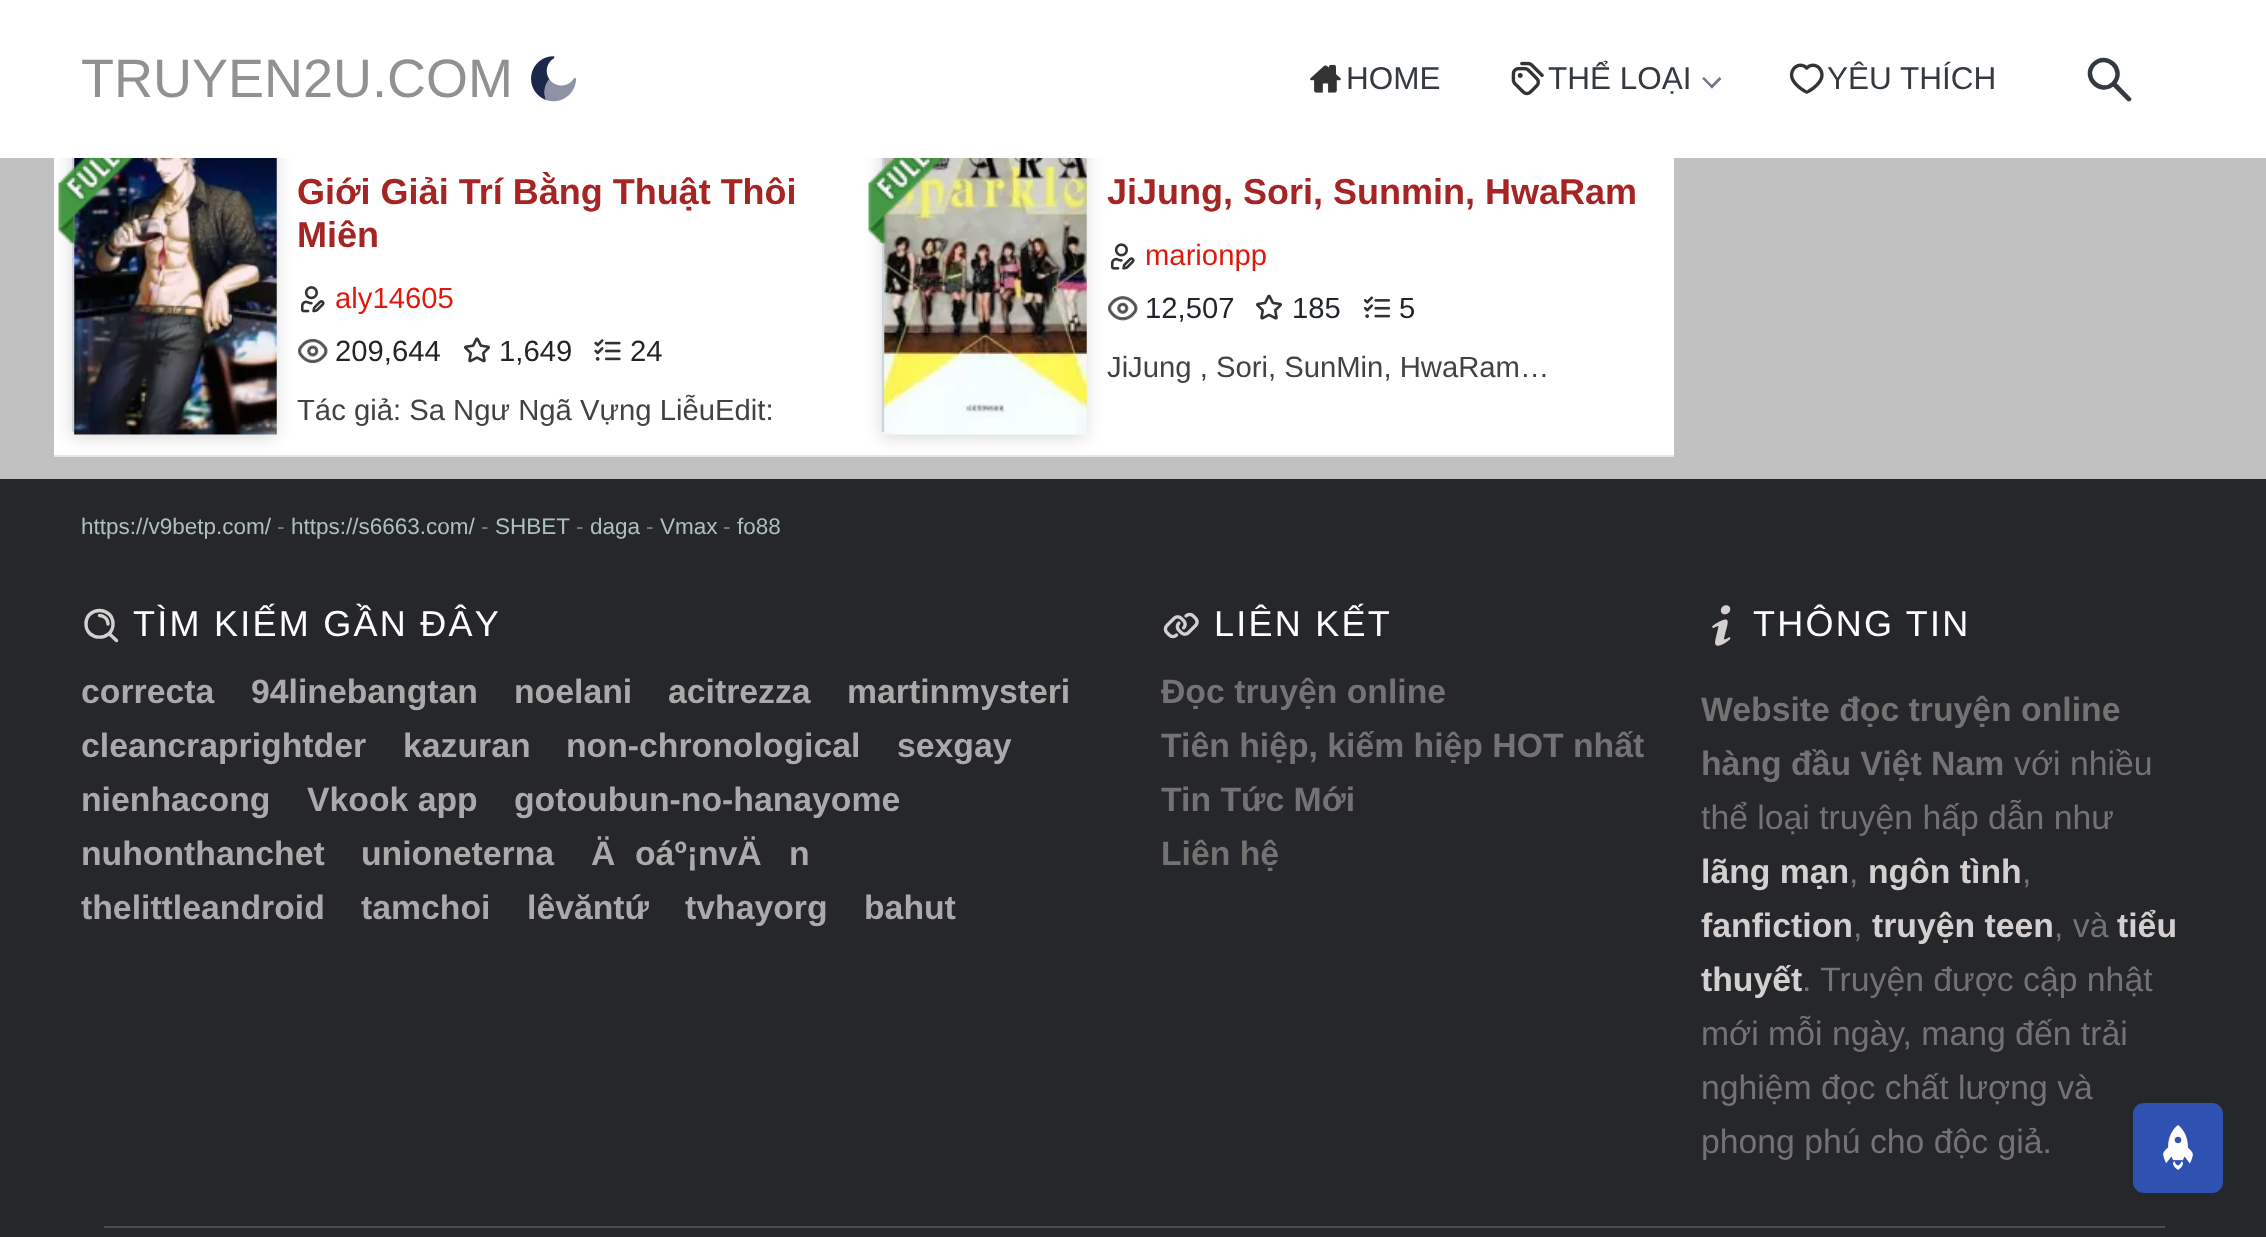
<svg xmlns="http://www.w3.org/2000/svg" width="2266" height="1237">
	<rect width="100%" height="100%" fill="#C1C1C1" />
	<rect x="54" y="158" width="1620" height="297" fill="#FFFFFF" />
	<rect x="54" y="455" width="1620" height="2" fill="#E5E6E9" />
	<image x="300" y="286" width="25" height="27" href="assets/img7.png" />
	<image x="298" y="338" width="30" height="26" href="assets/img8.png" />
	<rect x="72" y="133" width="203" height="304" fill="#010303" fill-opacity="0.16" filter="blur(9px)" />
	<rect x="73" y="129" width="201" height="302" fill="none" stroke="#CCD3DD" stroke-width="2" />
	<image x="1110" y="243" width="25" height="27" href="assets/img13.png" />
	<image x="1108" y="296" width="30" height="25" href="assets/img14.png" />
	<rect x="882" y="133" width="203" height="304" fill="#010303" fill-opacity="0.16" filter="blur(9px)" />
	<rect x="883" y="129" width="201" height="302" fill="none" stroke="#CCD3DD" stroke-width="2" />
	<rect x="0" y="0" width="2266" height="158" fill="#FFFFFF" />
	<text x="81" y="97" font-family="Liberation Sans" font-size="54" fill="#919192">TRUYEN2U.COM</text>
	<image x="531" y="56" width="45" height="46" href="assets/img1.png" />
	<image x="1310" y="64" width="31" height="29" href="assets/img2.png" />
	<text x="1346" y="89" font-family="Liberation Sans" font-size="31.5" fill="#343A40">HOME</text>
	<image x="1511" y="61" width="33" height="35" href="assets/img3.png" />
	<text x="1548" y="89" font-family="Liberation Sans" font-size="31.5" fill="#343A40">THỂ LOẠI</text>
	<path d="M1719.5 77L1721.5 79L1712 88.5L1710 86.5Z" fill="#70798B" />
	<path d="M1704 77L1713.5 86.5L1712 88.5L1702 78.5Z" fill="#70798B" />
	<image x="1789" y="63" width="35" height="31" href="assets/img4.png" />
	<text x="1827" y="89" font-family="Liberation Sans" font-size="31.5" fill="#343A40">YÊU THÍCH</text>
	<path d="M2094 64C2107 51.5 2126 70.5 2113.5 83.5C2100.5 96 2081.5 76.5 2094 64Z" fill="none" stroke="#343A40" stroke-width="4.5" />
	<path d="M2111.5 85L2115 81.5L2131 98C2132.5 100 2129.5 102.5 2127.5 101Z" fill="#343A40" />
	<image x="74" y="158" width="203" height="277" href="assets/img6.png" />
	<image x="58" y="158" width="77" height="86" href="assets/img5.png" />
	<g font-family="Liberation Sans" font-size="36" font-weight="700" fill="#A52424">
		<text x="297" y="204">Giới Giải Trí Bằng Thuật Thôi</text>
		<text x="297" y="247">Miên</text>
	</g>
	<text x="335" y="308" font-family="Liberation Sans" font-size="29.25" fill="#DF1A0C">aly14605</text>
	<text x="335" y="361" font-family="Liberation Sans" font-size="29.25" fill="#212529">209,644</text>
	<image x="464" y="337" width="26" height="26" href="assets/img9.png" />
	<text x="499" y="361" font-family="Liberation Sans" font-size="29.25" fill="#212529">1,649</text>
	<image x="594" y="339" width="27" height="22" href="assets/img10.png" />
	<text x="630" y="361" font-family="Liberation Sans" font-size="29.25" fill="#212529">24</text>
	<text x="297" y="420" font-family="Liberation Sans" font-size="29.25" fill="#424242">Tác giả: Sa Ngư Ngã Vựng LiễuEdit:</text>
	<image x="884" y="158" width="203" height="277" href="assets/img12.png" />
	<image x="868" y="158" width="77" height="86" href="assets/img11.png" />
	<text x="1107" y="204" font-family="Liberation Sans" font-size="36" font-weight="700" fill="#A52424">JiJung, Sori, Sunmin, HwaRam</text>
	<text x="1145" y="265" font-family="Liberation Sans" font-size="29.25" fill="#DF1A0C">marionpp</text>
	<text x="1145" y="318" font-family="Liberation Sans" font-size="29.25" fill="#212529">12,507</text>
	<image x="1256" y="294" width="26" height="26" href="assets/img15.png" />
	<text x="1292" y="318" font-family="Liberation Sans" font-size="29.25" fill="#212529">185</text>
	<image x="1363" y="296" width="28" height="22" href="assets/img16.png" />
	<text x="1399" y="318" font-family="Liberation Sans" font-size="29.25" fill="#212529">5</text>
	<text x="1107" y="377" font-family="Liberation Sans" font-size="29.25" fill="#424242">JiJung , Sori, SunMin, HwaRam…</text>
	<rect x="0" y="479" width="2266" height="758" fill="#26272B" />
	<text x="81" y="534" font-family="Liberation Sans" font-size="22.5" fill="#ACC1BF">https://v9betp.com/</text>
	<text x="277" y="534" font-family="Liberation Sans" font-size="22.5" fill="#808080">-</text>
	<text x="291" y="534" font-family="Liberation Sans" font-size="22.5" fill="#ACC1BF">https://s6663.com/</text>
	<text x="481" y="534" font-family="Liberation Sans" font-size="22.5" fill="#808080">-</text>
	<text x="495" y="534" font-family="Liberation Sans" font-size="22.5" fill="#ACC1BF">SHBET</text>
	<text x="576" y="534" font-family="Liberation Sans" font-size="22.5" fill="#808080">-</text>
	<text x="590" y="534" font-family="Liberation Sans" font-size="22.5" fill="#ACC1BF">daga</text>
	<text x="646" y="534" font-family="Liberation Sans" font-size="22.5" fill="#808080">-</text>
	<text x="660" y="534" font-family="Liberation Sans" font-size="22.5" fill="#ACC1BF">Vmax</text>
	<text x="723" y="534" font-family="Liberation Sans" font-size="22.5" fill="#808080">-</text>
	<text x="737" y="534" font-family="Liberation Sans" font-size="22.5" fill="#ACC1BF">fo88</text>
	<path d="M99.5 615.5C104 615.5 108 619 108 624M109 633.5L116.5 640.5M113 624C113 641.5 86 641.5 86 624C86 606 113 606 113 624Z" fill="none" stroke="#D4D0D0" stroke-width="3.4" stroke-linecap="round" stroke-linejoin="round" />
	<text x="133" y="636" font-family="Liberation Sans" font-size="36" letter-spacing="2.25" fill="#FFFFFF">TÌM KIẾM GẦN ĐÂY</text>
	<g font-family="Liberation Sans" font-size="33.75" font-weight="700" fill="#AAAAAA">
		<text x="81" y="703">correcta</text>
		<text x="251" y="703">94linebangtan</text>
		<text x="514" y="703">noelani</text>
		<text x="668" y="703">acitrezza</text>
		<text x="847" y="703">martinmysteri</text>
		<text x="81" y="757">cleancraprightder</text>
		<text x="403" y="757">kazuran</text>
		<text x="566" y="757">non-chronological</text>
		<text x="897" y="757">sexgay</text>
		<text x="81" y="811">nienhacong</text>
		<text x="307" y="811">Vkook app</text>
		<text x="514" y="811">gotoubun-no-hanayome</text>
		<text x="81" y="865">nuhonthanchet</text>
		<text x="361" y="865">unioneterna</text>
		<text x="591" y="865">Ä</text>
		<text x="635" y="865">oáº¡nvÄ</text>
		<text x="789" y="865">n</text>
		<text x="81" y="919">thelittleandroid</text>
		<text x="361" y="919">tamchoi</text>
		<text x="527" y="919">lêvăntứ</text>
		<text x="685" y="919">tvhayorg</text>
		<text x="864" y="919">bahut</text>
	</g>
	<image x="1163" y="612" width="36" height="27" href="assets/img17.png" />
	<text x="1214" y="636" font-family="Liberation Sans" font-size="36" letter-spacing="2.25" fill="#FFFFFF">LIÊN KẾT</text>
	<g font-family="Liberation Sans" font-size="33.75" font-weight="700" fill="#737373">
		<text x="1161" y="703">Đọc truyện online</text>
		<text x="1161" y="757">Tiên hiệp, kiếm hiệp HOT nhất</text>
		<text x="1161" y="811">Tin Tức Mới</text>
		<text x="1161" y="865">Liên hệ</text>
	</g>
	<image x="1712" y="605" width="19" height="41" href="assets/img18.png" />
	<text x="1753" y="636" font-family="Liberation Sans" font-size="36" letter-spacing="2.25" fill="#FFFFFF">THÔNG TIN</text>
	<g font-family="Liberation Sans" font-size="33.75" font-weight="700" fill="#737373">
		<text x="1701" y="721">Website đọc truyện online</text>
		<text x="1701" y="775">hàng đầu Việt Nam</text>
	</g>
	<g font-family="Liberation Sans" font-size="33.75" fill="#737373">
		<text x="2014" y="775">với nhiều</text>
		<text x="1701" y="829">thể loại truyện hấp dẫn như</text>
	</g>
	<text x="1701" y="883" font-family="Liberation Sans" font-size="33.75" font-weight="700" fill="#D4D0D0">lãng mạn</text>
	<text x="1849" y="883" font-family="Liberation Sans" font-size="33.75" fill="#737373">,</text>
	<text x="1868" y="883" font-family="Liberation Sans" font-size="33.75" font-weight="700" fill="#D4D0D0">ngôn tình</text>
	<text x="2022" y="883" font-family="Liberation Sans" font-size="33.75" fill="#737373">,</text>
	<text x="1701" y="937" font-family="Liberation Sans" font-size="33.75" font-weight="700" fill="#D4D0D0">fanfiction</text>
	<text x="1853" y="937" font-family="Liberation Sans" font-size="33.75" fill="#737373">,</text>
	<text x="1872" y="937" font-family="Liberation Sans" font-size="33.75" font-weight="700" fill="#D4D0D0">truyện teen</text>
	<text x="2054" y="937" font-family="Liberation Sans" font-size="33.75" fill="#737373">, và</text>
	<g font-family="Liberation Sans" font-size="33.75" font-weight="700" fill="#D4D0D0">
		<text x="2117" y="937">tiểu</text>
		<text x="1701" y="991">thuyết</text>
	</g>
	<g font-family="Liberation Sans" font-size="33.75" fill="#737373">
		<text x="1802" y="991">. Truyện được cập nhật</text>
		<text x="1701" y="1045">mới mỗi ngày, mang đến trải</text>
		<text x="1701" y="1099">nghiệm đọc chất lượng và</text>
		<text x="1701" y="1153">phong phú cho độc giả.</text>
	</g>
	<rect x="104" y="1226" width="2061" height="2" fill="#4D4D4F" />
	<rect x="2133" y="1103" width="90" height="90" rx="11" fill="#2F52B2" />
	<image x="2163" y="1125" width="30" height="45" href="assets/img19.png" />
</svg>
